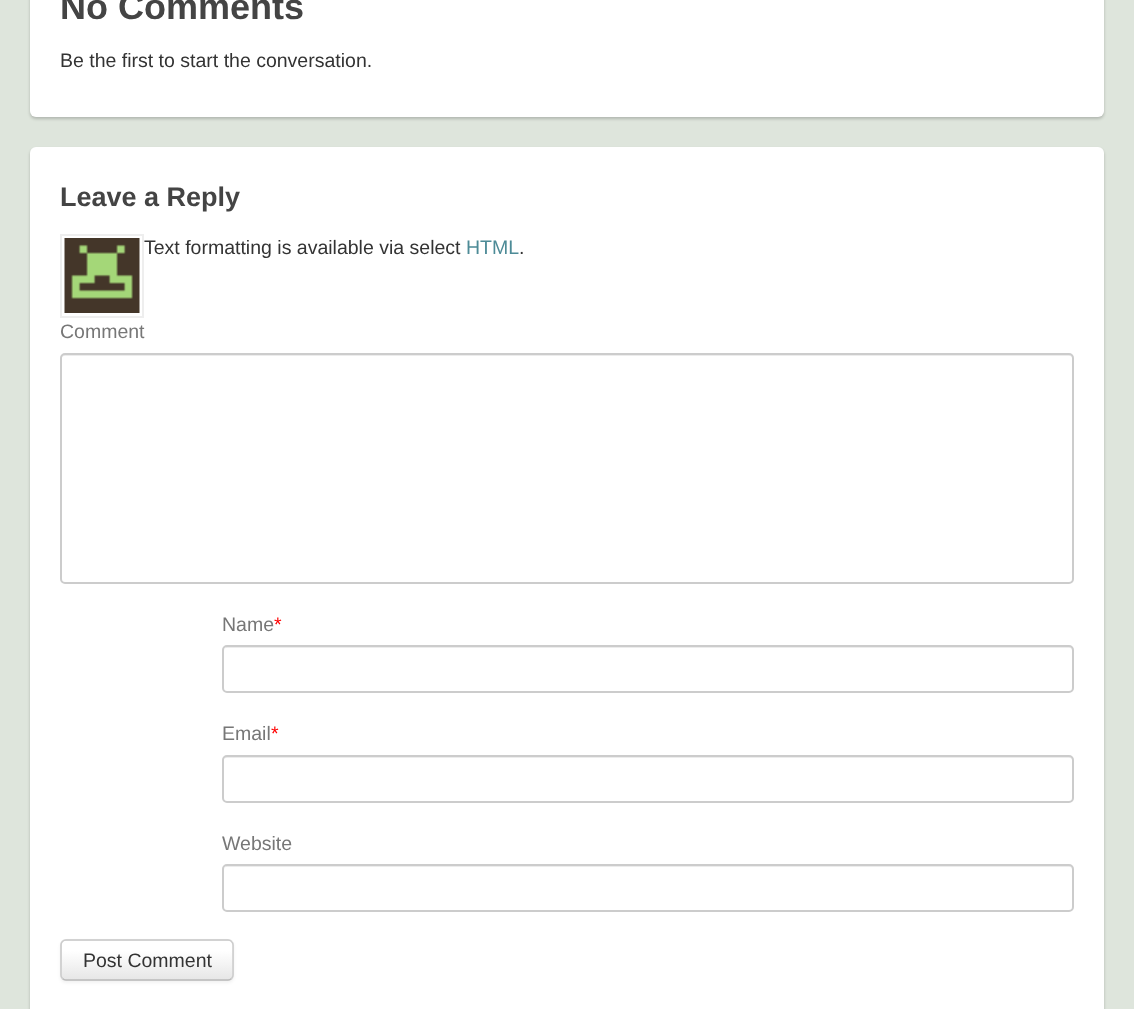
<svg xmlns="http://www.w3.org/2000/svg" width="1134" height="1009">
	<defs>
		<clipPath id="clip1"><rect x="60" y="939" width="174" height="42" rx="6" /></clipPath>
		<linearGradient id="g1" gradientUnits="userSpaceOnUse" x1="147" y1="941" x2="147" y2="980"><stop offset="0" stop-color="#FFFFFF" /><stop offset="0.25" stop-color="#FFFFFF" /><stop offset="1" stop-color="#E6E6E6" /></linearGradient>
	</defs>
	<rect width="100%" height="100%" fill="#DEE5DC" />
	<rect x="30" y="-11" width="1074" height="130" rx="6" fill="#000000" fill-opacity="0.2" filter="blur(1.5px)" />
	<rect x="30" y="-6" width="1074" height="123" rx="6" fill="#FFFFFF" />
	<text x="60" y="19" font-family="Liberation Sans" font-size="36" font-weight="700" fill="#444444">No Comments</text>
	<text x="60" y="67" font-family="Liberation Sans" font-size="19.5" fill="#333333">Be the first to start the conversation.</text>
	<rect x="30" y="149" width="1074" height="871" rx="6" fill="#000000" fill-opacity="0.2" filter="blur(1.5px)" />
	<rect x="30" y="147" width="1074" height="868" rx="6" fill="#FFFFFF" />
	<text x="60" y="206" font-family="Liberation Sans" font-size="27" font-weight="700" fill="#444444">Leave a Reply</text>
	<rect x="61" y="235" width="82" height="82" fill="none" stroke="#EEEEEE" stroke-width="2" />
	<image x="64" y="238" width="76" height="75" href="assets/img1.png" />
	<text x="144" y="254" font-family="Liberation Sans" font-size="19.5" fill="#333333">Text formatting is available via select</text>
	<text x="466" y="254" font-family="Liberation Sans" font-size="19.5" fill="#4D8B97">HTML</text>
	<text x="519" y="254" font-family="Liberation Sans" font-size="19.5" fill="#333333">.</text>
	<text x="60" y="338" font-family="Liberation Sans" font-size="19.5" fill="#777777">Comment</text>
	<path d="M64 356H1070C1071 356 1072 357 1072 358V581C1073 581 1073 580 1073 579V357C1073 355 1072 354 1070 354H65C63 354 62 355 62 357V358C62 357 63 356 64 356Z" fill="#ECECEC" />
	<rect x="61" y="354" width="1012" height="229" rx="4" fill="none" stroke="#CCCCCC" stroke-width="2" />
	<text x="222" y="631" font-family="Liberation Sans" font-size="19.5" fill="#777777">Name</text>
	<text x="274" y="631" font-family="Liberation Sans" font-size="19.5" fill="#FF0000">*</text>
	<path d="M226 648H1070C1071 648 1072 649 1072 651V691L1073 689V649L1071 647H226L225 648L224 651C224 649 225 648 226 648Z" fill="#ECECEC" />
	<rect x="223" y="646" width="850" height="46" rx="4" fill="none" stroke="#CCCCCC" stroke-width="2" />
	<text x="222" y="740" font-family="Liberation Sans" font-size="19.5" fill="#777777">Email</text>
	<text x="271" y="740" font-family="Liberation Sans" font-size="19.5" fill="#FF0000">*</text>
	<path d="M226 758H1070C1071 758 1072 759 1072 760V800L1073 798V758L1071 756H226L225 757L224 760C224 759 225 758 226 758Z" fill="#ECECEC" />
	<rect x="223" y="756" width="850" height="46" rx="4" fill="none" stroke="#CCCCCC" stroke-width="2" />
	<text x="222" y="850" font-family="Liberation Sans" font-size="19.5" fill="#777777">Website</text>
	<path d="M226 867H1070C1071 867 1072 868 1072 870V910L1073 908V868L1071 866H226L225 867L224 870C224 868 225 867 226 867Z" fill="#ECECEC" />
	<rect x="223" y="865" width="850" height="46" rx="4" fill="none" stroke="#CCCCCC" stroke-width="2" />
	<rect x="60" y="941" width="174" height="42" rx="6" fill="#000000" fill-opacity="0.05" filter="blur(1.5px)" />
	<rect x="60" y="939" width="174" height="42" rx="6" fill="#E6E6E6" />
	<g clip-path="url(#clip1)">
		<rect x="62" y="941" width="171" height="39" fill="url(#g1)" />
	</g>
	<path d="M66 942H228C230 942 232 944 232 946V976L231 979C232 978 233 976 233 975V946C233 943 231 941 228 941H67C64 941 62 943 62 946C62 944 64 942 66 942Z" fill="#FFFFFF" fill-opacity="0.2" />
	<path d="M231.5 978.5C230.5 979.5 229.5 980 228 980H66C64.5 980 63.5 979.5 62.5 978.5" fill="none" stroke="#BBBBBB" stroke-width="1.5" />
	<path d="M62.5 978.5C61.5 977.5 61 976.5 61 975V945C61 943.5 61.5 942.5 62.5 941.5C63.5 940.5 64.5 940 66 940H228C229.5 940 230.5 940.5 231.5 941.5C232.5 942.5 233 943.5 233 945V975C233 976.5 232.5 977.5 231.5 978.5" fill="none" stroke="#CCCCCC" stroke-width="1.5" />
	<text x="83" y="967" font-family="Liberation Sans" font-size="19.5" fill="#333333">Post Comment</text>
</svg>
